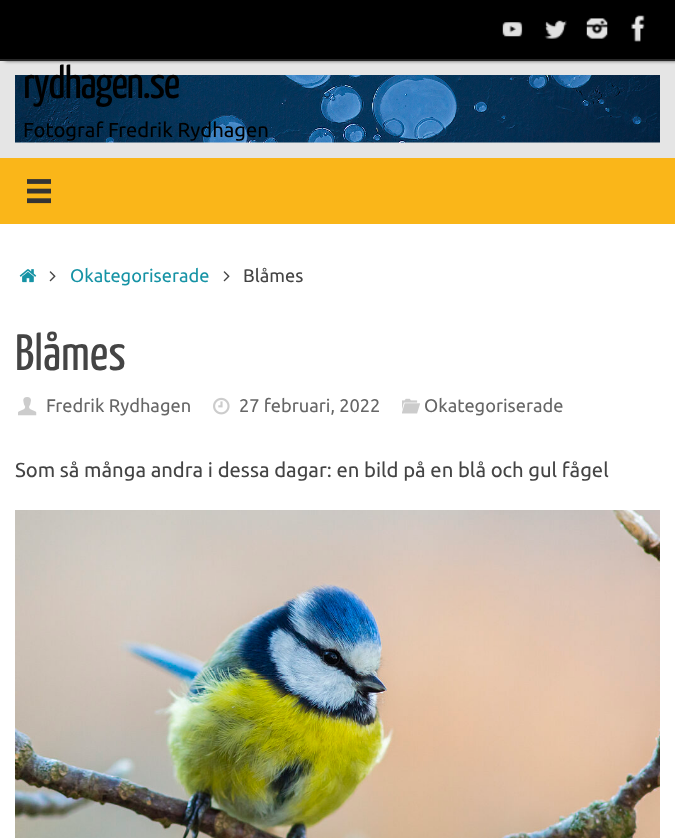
<svg xmlns="http://www.w3.org/2000/svg" width="675" height="838">
	<rect width="100%" height="100%" fill="#E5E5E5" />
	<rect x="5" y="0" width="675" height="60" fill="#000000" filter="blur(2px)" />
	<rect x="0" y="0" width="675" height="59" fill="#000000" />
	<rect x="0" y="59" width="675" height="2" fill="#282828" />
	<image x="502" y="22" width="21" height="15" href="assets/img1.png" />
	<image x="544" y="20" width="23" height="19" href="assets/img2.png" />
	<image x="586" y="18" width="22" height="21" href="assets/img3.png" />
	<image x="631" y="15" width="14" height="27" href="assets/img4.png" />
	<image x="15" y="75" width="645" height="68" href="assets/img5.png" />
	<text x="23" y="98" font-family="Yanone Kaffeesatz" font-size="45.5" letter-spacing="-1.4" fill="#000000">rydhagen.se</text>
	<text x="23" y="137" font-family="Ubuntu" font-size="20.25" fill="#000000">Fotograf Fredrik Rydhagen</text>
	<rect x="0" y="158" width="675" height="66" fill="#FAB619" />
	<image x="27" y="179" width="24" height="25" href="assets/img6.png" />
	<rect x="0" y="224" width="675" height="614" fill="#FFFFFF" />
	<image x="19" y="269" width="18" height="14" href="assets/img7.png" />
	<image x="49" y="271" width="7" height="11" href="assets/img8.png" />
	<text x="70" y="282" font-family="Ubuntu" font-size="18.25" fill="#1693A5">Okategoriserade</text>
	<image x="223" y="271" width="7" height="11" href="assets/img8.png" />
	<text x="243" y="282" font-family="Ubuntu" font-size="18.25" fill="#444444">Blåmes</text>
	<text x="15" y="370" font-family="Yanone Kaffeesatz" font-size="51" fill="#444444">Blåmes</text>
	<image x="18" y="397" width="19" height="19" href="assets/img9.png" />
	<text x="46" y="412" font-family="Ubuntu" font-size="18.25" fill="#666666">Fredrik Rydhagen</text>
	<image x="213" y="397" width="17" height="18" href="assets/img10.png" />
	<text x="239" y="412" font-family="Ubuntu" font-size="18.25" fill="#666666">27 februari, 2022</text>
	<image x="402" y="398" width="18" height="16" href="assets/img11.png" />
	<text x="424" y="412" font-family="Ubuntu" font-size="18.25" fill="#666666">Okategoriserade</text>
	<text x="15" y="477" font-family="Ubuntu" font-size="20.25" fill="#444444">Som så många andra i dessa dagar: en bild på en blå och gul fågel</text>
	<image x="15" y="510" width="645" height="328" href="assets/img12.png" />
</svg>
